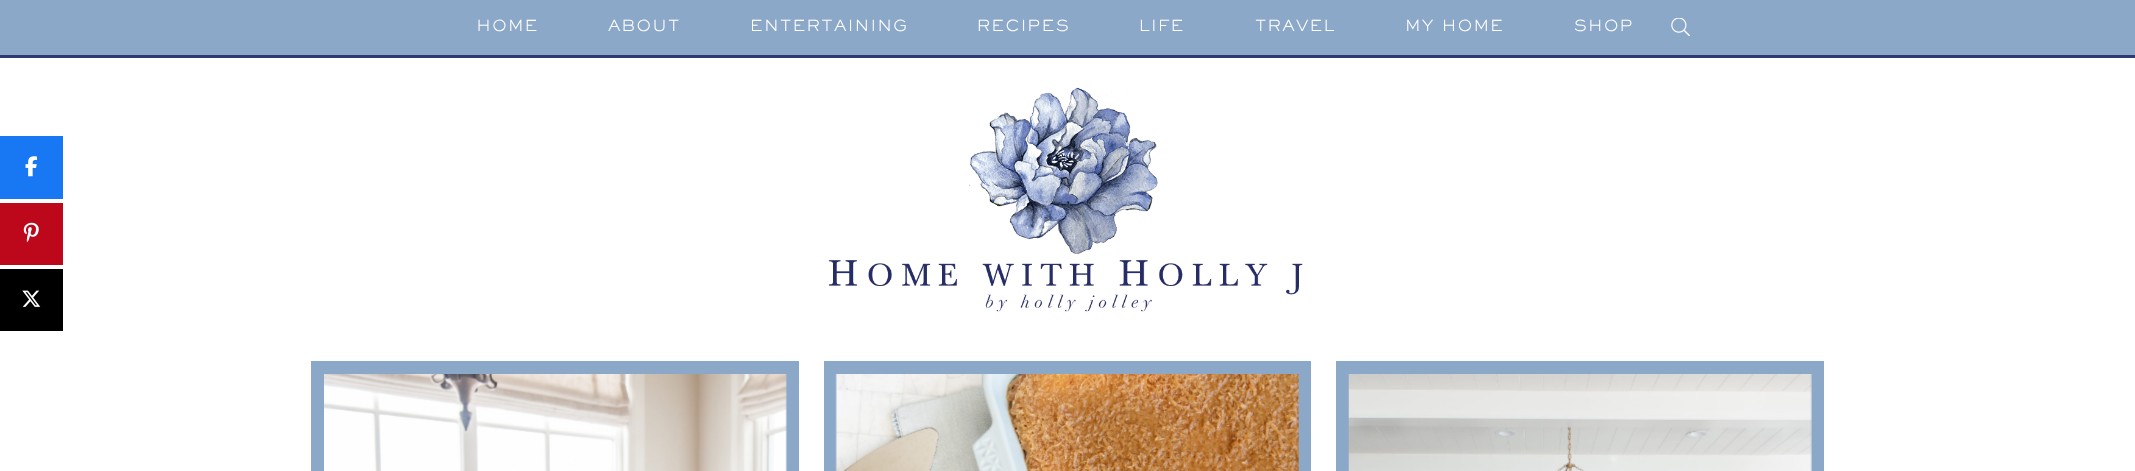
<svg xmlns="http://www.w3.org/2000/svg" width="2135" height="471">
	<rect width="100%" height="100%" fill="#FFFFFF" />
	<rect x="0" y="0" width="2135" height="55" fill="#8CA8C8" />
	<rect x="0" y="55" width="2135" height="3" fill="#2E396F" />
	<g font-family="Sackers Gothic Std" font-size="15" font-weight="300" letter-spacing="1.25" fill="#FFFFFF">
		<text x="476" y="31">HOME</text>
		<text x="608" y="31">ABOUT</text>
		<text x="750" y="31">ENTERTAINING</text>
		<text x="977" y="31">RECIPES</text>
		<text x="1139" y="31">LIFE</text>
		<text x="1255" y="31">TRAVEL</text>
		<text x="1405" y="31">MY HOME</text>
		<text x="1574" y="31">SHOP</text>
	</g>
	<image x="1671" y="18" width="19" height="18" href="assets/img1.png" />
	<rect x="0" y="136" width="63" height="63" fill="#1877F2" />
	<image x="25" y="156" width="12" height="21" href="assets/img2.png" />
	<rect x="0" y="203" width="63" height="62" fill="#BD081C" />
	<image x="23" y="222" width="16" height="21" href="assets/img3.png" />
	<rect x="0" y="269" width="63" height="62" fill="#000000" />
	<image x="22" y="290" width="19" height="17" href="assets/img4.png" />
	<image x="828" y="87" width="475" height="225" href="assets/img5.png" />
	<rect x="311" y="361" width="488" height="110" fill="#8CA8C8" />
	<image x="324" y="374" width="463" height="97" href="assets/img6.png" />
	<rect x="824" y="361" width="487" height="110" fill="#8CA8C8" />
	<image x="835" y="374" width="464" height="97" href="assets/img7.png" />
	<rect x="1336" y="361" width="488" height="110" fill="#8CA8C8" />
	<image x="1348" y="374" width="464" height="97" href="assets/img8.png" />
</svg>
